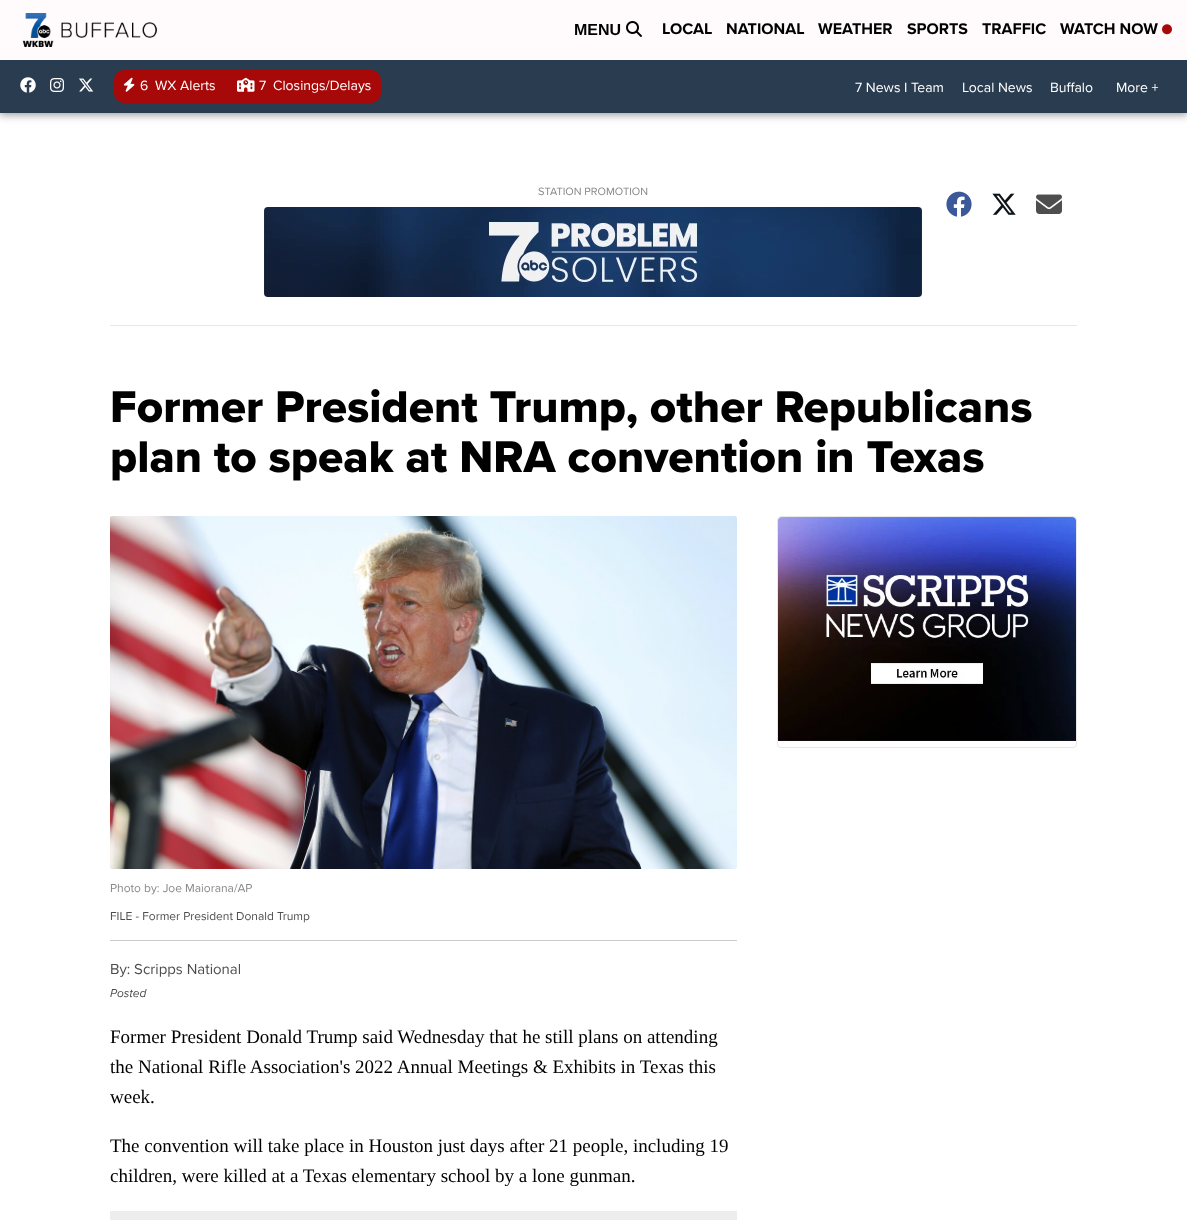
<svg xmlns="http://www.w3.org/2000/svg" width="1187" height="1220">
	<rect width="100%" height="100%" fill="#FFFFFF" />
	<rect x="-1" y="-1" width="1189" height="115" fill="#616161" fill-opacity="0.76" filter="blur(5px)" />
	<rect x="0" y="0" width="1187" height="60" fill="#FFFBFD" />
	<image x="22" y="13" width="135" height="34" href="assets/img1.png" />
	<text x="574" y="35" font-family="Liberation Sans" font-size="16" font-weight="700" fill="#000000">MENU</text>
	<image x="626" y="21" width="16" height="16" href="assets/img2.png" />
	<g font-family="Proxima Nova" font-size="16" font-weight="700" fill="#000000">
		<text x="662" y="34">LOCAL</text>
		<text x="726" y="34">NATIONAL</text>
		<text x="818" y="34">WEATHER</text>
		<text x="907" y="34">SPORTS</text>
		<text x="982" y="34">TRAFFIC</text>
		<text x="1060" y="34">WATCH NOW</text>
	</g>
	<image x="1162" y="24" width="10" height="11" href="assets/img3.png" />
	<rect x="0" y="60" width="1187" height="53" fill="#2A3C4F" />
	<image x="20" y="77" width="16" height="16" href="assets/img4.png" />
	<image x="50" y="78" width="14" height="14" href="assets/img5.png" />
	<image x="79" y="78" width="15" height="14" href="assets/img6.png" />
	<rect x="114" y="70" width="267" height="33" rx="10" fill="#A70808" />
	<image x="123" y="77" width="12" height="15" href="assets/img7.png" />
	<g font-family="Proxima Nova" font-size="14" fill="#FFFFFF">
		<text x="140" y="90">6</text>
		<text x="155" y="90">WX Alerts</text>
	</g>
	<image x="237" y="77" width="18" height="15" href="assets/img8.png" />
	<g font-family="Proxima Nova" font-size="14" fill="#FFFFFF">
		<text x="259" y="90">7</text>
		<text x="273" y="90">Closings/Delays</text>
		<text x="855" y="92">7 News I Team</text>
		<text x="962" y="92">Local News</text>
		<text x="1050" y="92">Buffalo</text>
		<text x="1116" y="92">More +</text>
	</g>
	<rect x="110" y="325" width="967" height="1" fill="#E7E7E7" />
	<text x="538" y="195" font-family="Proxima Nova" font-size="11" fill="#888888">STATION PROMOTION</text>
	<image x="264" y="207" width="658" height="90" href="assets/img9.png" />
	<image x="946" y="191" width="26" height="26" href="assets/img10.png" />
	<image x="992" y="193" width="24" height="22" href="assets/img11.png" />
	<image x="1036" y="194" width="26" height="20" href="assets/img12.png" />
	<g font-family="Proxima Nova" font-size="46" font-weight="800" fill="#000000">
		<text x="110" y="422">Former President Trump, other Republicans</text>
		<text x="110" y="472">plan to speak at NRA convention in Texas</text>
	</g>
	<rect x="777.5" y="516.5" width="299" height="231" rx="3.5" fill="none" stroke="#E7E7E7" />
	<image x="778" y="517" width="298" height="224" href="assets/img13.png" />
	<rect x="110" y="940" width="627" height="1" fill="#CCCCCC" />
	<image x="110" y="516" width="627" height="353" href="assets/img14.png" />
	<text x="110" y="892" font-family="Proxima Nova" font-size="12" fill="#888888">Photo by: Joe Maiorana/AP</text>
	<text x="110" y="920" font-family="Proxima Nova" font-size="12" fill="#4D4D4D">FILE - Former President Donald Trump</text>
	<text x="110" y="974" font-family="Proxima Nova" font-size="15" fill="#4D4D4D">By: Scripps National</text>
	<text x="110" y="997" font-family="Proxima Nova" font-size="12" font-style="italic" fill="#4D4D4D">Posted</text>
	<g font-family="Liberation Serif" font-size="19" fill="#000000">
		<text x="110" y="1043">Former President Donald Trump said Wednesday that he still plans on attending</text>
		<text x="110" y="1073">the National Rifle Association's 2022 Annual Meetings &amp; Exhibits in Texas this</text>
		<text x="110" y="1103">week.</text>
		<text x="110" y="1152">The convention will take place in Houston just days after 21 people, including 19</text>
		<text x="110" y="1182">children, were killed at a Texas elementary school by a lone gunman.</text>
	</g>
	<rect x="110" y="1211" width="627" height="9" fill="#EDEDED" />
</svg>
